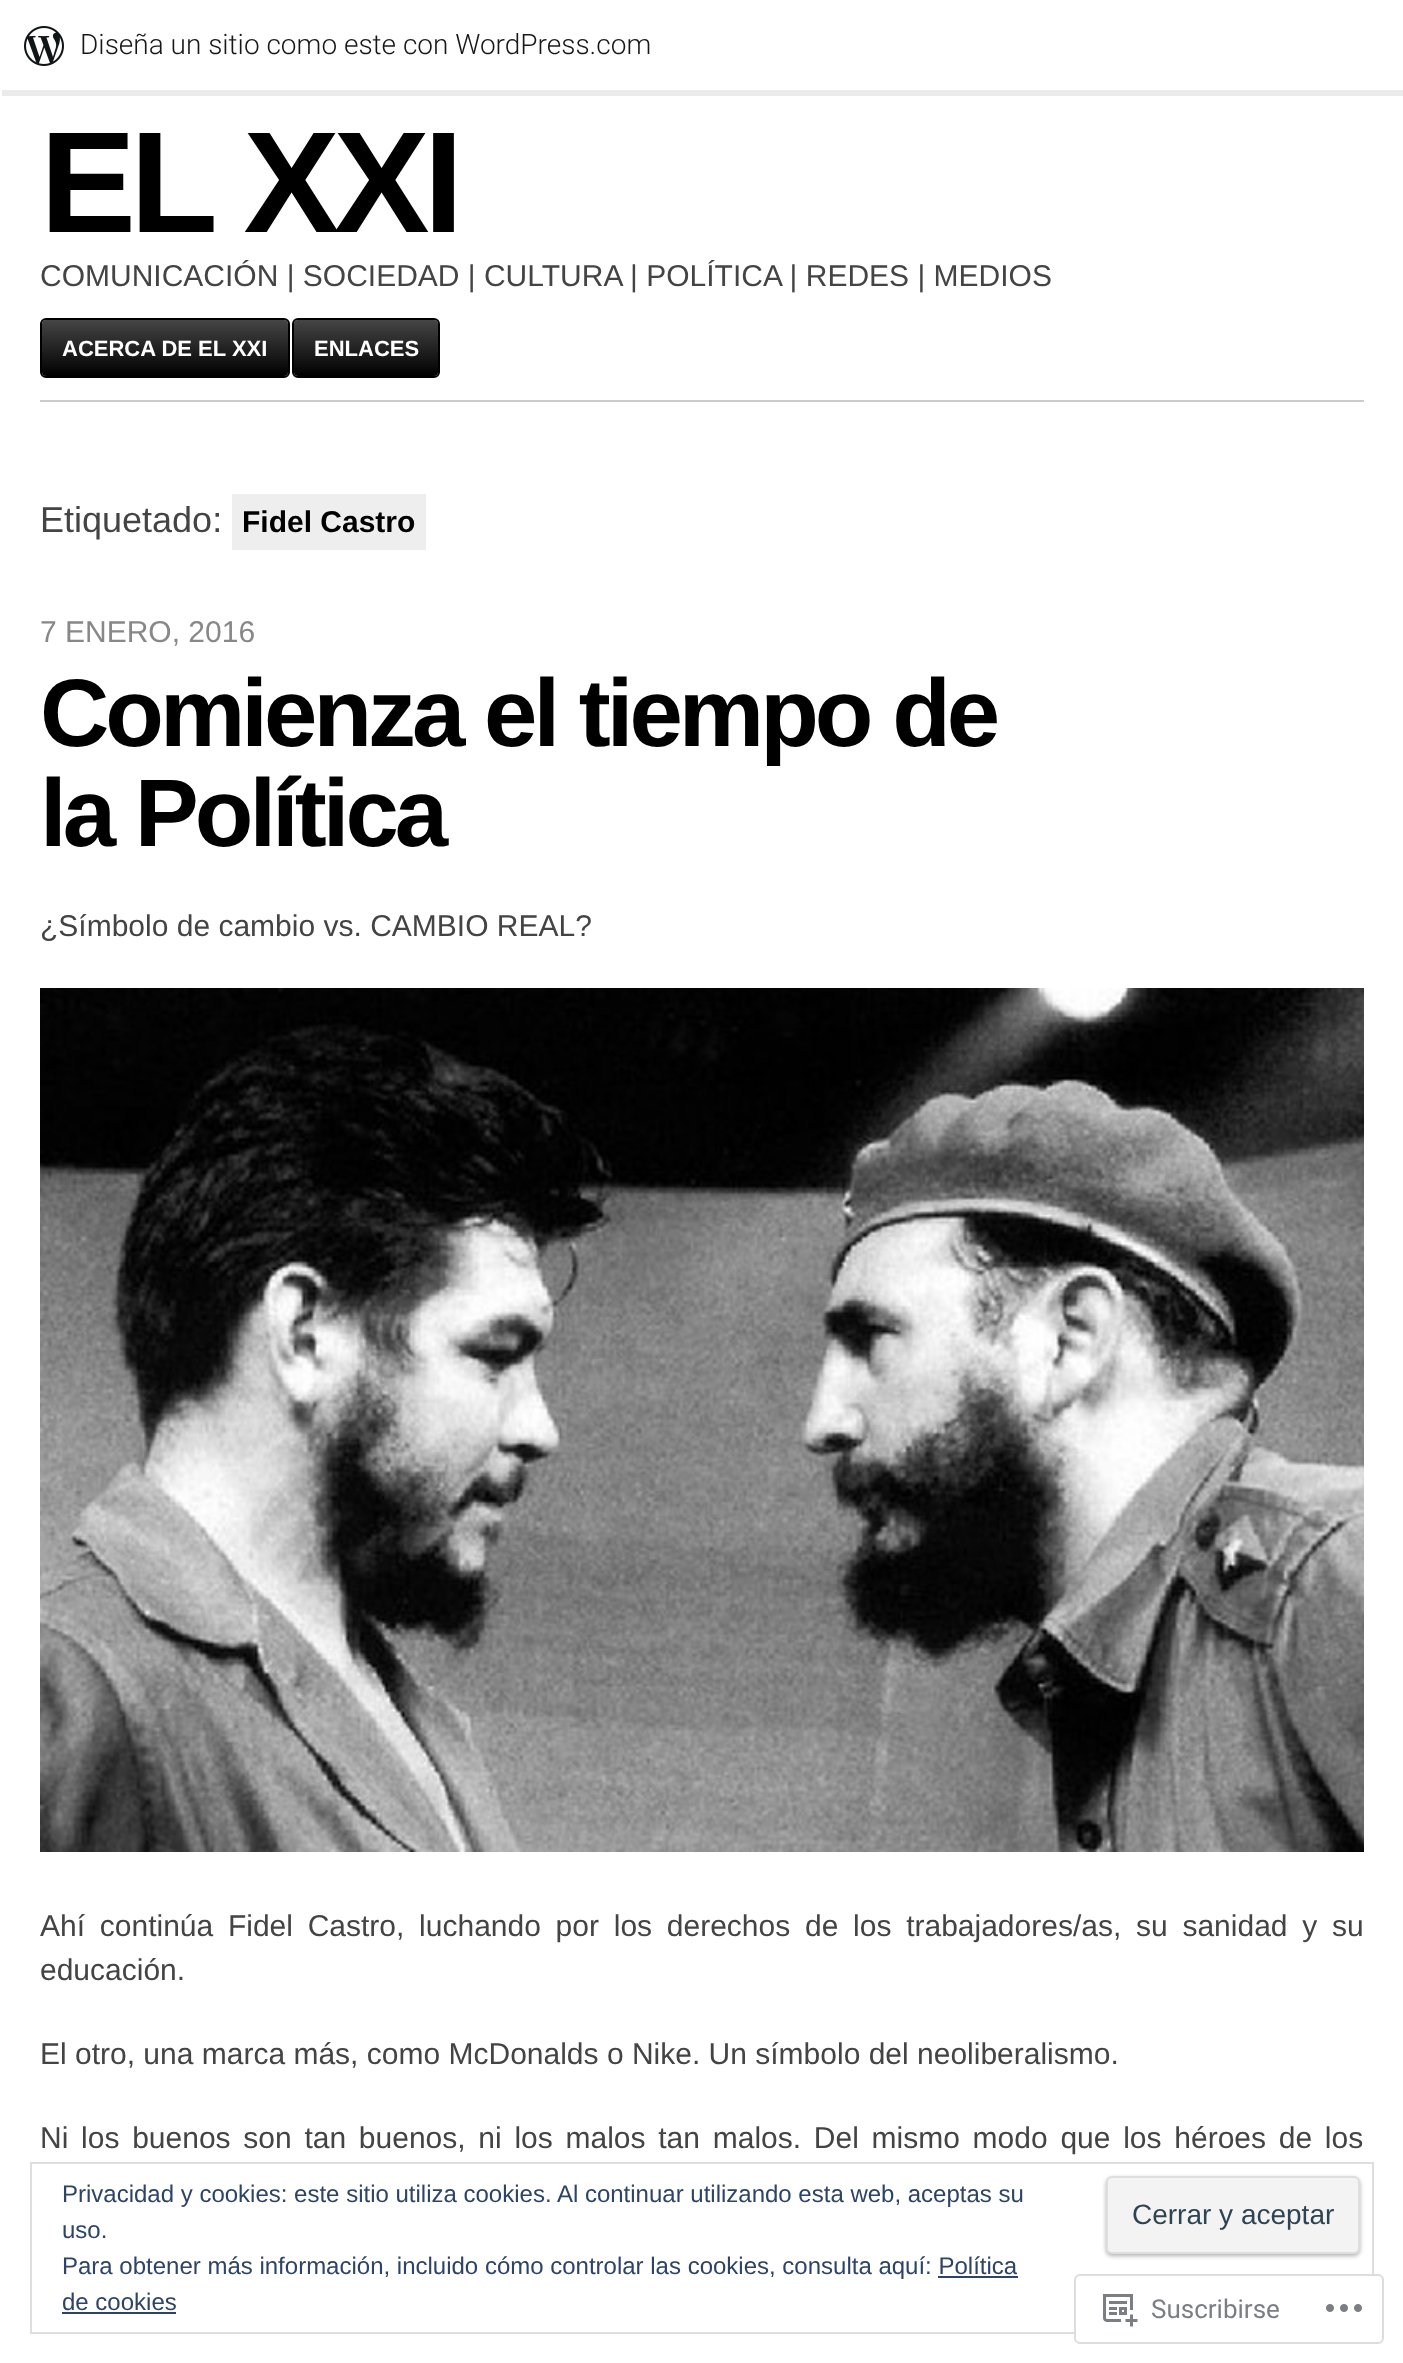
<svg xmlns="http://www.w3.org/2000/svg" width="1403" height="2363">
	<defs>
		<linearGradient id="g1" gradientUnits="userSpaceOnUse" x1="42" y1="320" x2="42" y2="376"><stop offset="0" stop-color="#454545" /><stop offset="1" stop-color="#000000" /></linearGradient>
		<linearGradient id="g2" gradientUnits="userSpaceOnUse" x1="294" y1="320" x2="294" y2="376"><stop offset="0" stop-color="#454545" /><stop offset="1" stop-color="#000000" /></linearGradient>
	</defs>
	<rect width="100%" height="100%" fill="#FFFFFF" />
	<path d="M2 90V96H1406V6H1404V90Z" fill="#000000" fill-opacity="0.08" />
	<image x="24" y="26" width="40" height="40" href="assets/img1.png" />
	<text x="80" y="54" font-family="Roboto" font-size="28" font-weight="300" fill="#171717">Diseña un sitio como este con WordPress.com</text>
	<rect x="40" y="400" width="1324" height="2" fill="#CCCCCC" />
	<text x="40" y="232" font-family="Liberation Sans" font-size="144" font-weight="700" letter-spacing="-6" fill="#000000">EL XXI</text>
	<text x="40" y="286" font-family="Liberation Sans" font-size="30" fill="#444444">COMUNICACIÓN | SOCIEDAD | CULTURA | POLÍTICA | REDES | MEDIOS</text>
	<rect x="42" y="320" width="246" height="56" rx="4" fill="url(#g1)" />
	<rect x="41" y="319" width="248" height="58" rx="5" fill="none" stroke="#000000" stroke-width="2" />
	<text x="62" y="356" font-family="Liberation Sans" font-size="22" font-weight="700" fill="#FFFFFF">ACERCA DE EL XXI</text>
	<rect x="294" y="320" width="144" height="56" rx="4" fill="url(#g2)" />
	<rect x="293" y="319" width="146" height="58" rx="5" fill="none" stroke="#000000" stroke-width="2" />
	<text x="314" y="356" font-family="Liberation Sans" font-size="22" font-weight="700" fill="#FFFFFF">ENLACES</text>
	<text x="40" y="532" font-family="Liberation Sans" font-size="36" fill="#444444">Etiquetado:</text>
	<rect x="232" y="494" width="194" height="56" fill="#EEEEEE" />
	<text x="242" y="532" font-family="Liberation Sans" font-size="30" font-weight="700" fill="#000000">Fidel Castro</text>
	<text x="40" y="642" font-family="Liberation Sans" font-size="30" fill="#888888">7 ENERO, 2016</text>
	<g font-family="Liberation Sans" font-size="96" font-weight="700" letter-spacing="-4" fill="#000000">
		<text x="40" y="746">Comienza el tiempo de</text>
		<text x="40" y="846">la Política</text>
	</g>
	<text x="40" y="936" font-family="Liberation Sans" font-size="30" fill="#444444">¿Símbolo de cambio vs. CAMBIO REAL?</text>
	<image x="40" y="988" width="1324" height="864" href="assets/img2.png" />
	<g font-family="Liberation Sans" font-size="30" fill="#444444">
		<text x="40" y="1936" word-spacing="6.4">Ahí continúa Fidel Castro, luchando por los derechos de los trabajadores/as, su sanidad y su</text>
		<text x="40" y="1980">educación.</text>
		<text x="40" y="2064">El otro, una marca más, como McDonalds o Nike. Un símbolo del neoliberalismo.</text>
		<text x="40" y="2148" word-spacing="4.4">Ni los buenos son tan buenos, ni los malos tan malos. Del mismo modo que los héroes de los</text>
	</g>
	<rect x="31" y="2163" width="1342" height="170" fill="none" stroke="#DEDEDE" stroke-width="2" />
	<text x="62" y="2202" font-family="Liberation Sans" font-size="24" fill="#2E4467">Privacidad y cookies: este sitio utiliza cookies. Al continuar utilizando esta web, aceptas su</text>
	<rect x="1106" y="2178" width="254" height="78" rx="6" fill="#000000" fill-opacity="0.3" filter="blur(2px)" />
	<rect x="1107" y="2177" width="252" height="76" rx="5" fill="#F3F3F3" stroke="#DEDEDE" stroke-width="2" />
	<text x="1132" y="2224" font-family="Liberation Sans" font-size="28" fill="#2E4453">Cerrar y aceptar</text>
	<g font-family="Liberation Sans" font-size="24" fill="#2E4467">
		<text x="62" y="2238">uso.</text>
		<text x="62" y="2274">Para obtener más información, incluido cómo controlar las cookies, consulta aquí: Política</text>
		<text x="62" y="2310">de cookies</text>
	</g>
	<rect x="938" y="2276" width="80" height="2" fill="#2E4467" />
	<rect x="62" y="2312" width="114" height="2" fill="#2E4467" />
	<rect x="1075" y="2275" width="308" height="68" rx="5" fill="#FFFFFF" fill-opacity="0.98" stroke="#DDDDDF" stroke-width="2" />
	<image x="1103" y="2294" width="35" height="33" href="assets/img3.png" />
	<text x="1151" y="2318" font-family="Roboto" font-size="26" fill="#7B7F85">Suscribirse</text>
	<image x="1326" y="2304" width="36" height="8" href="assets/img4.png" />
</svg>
